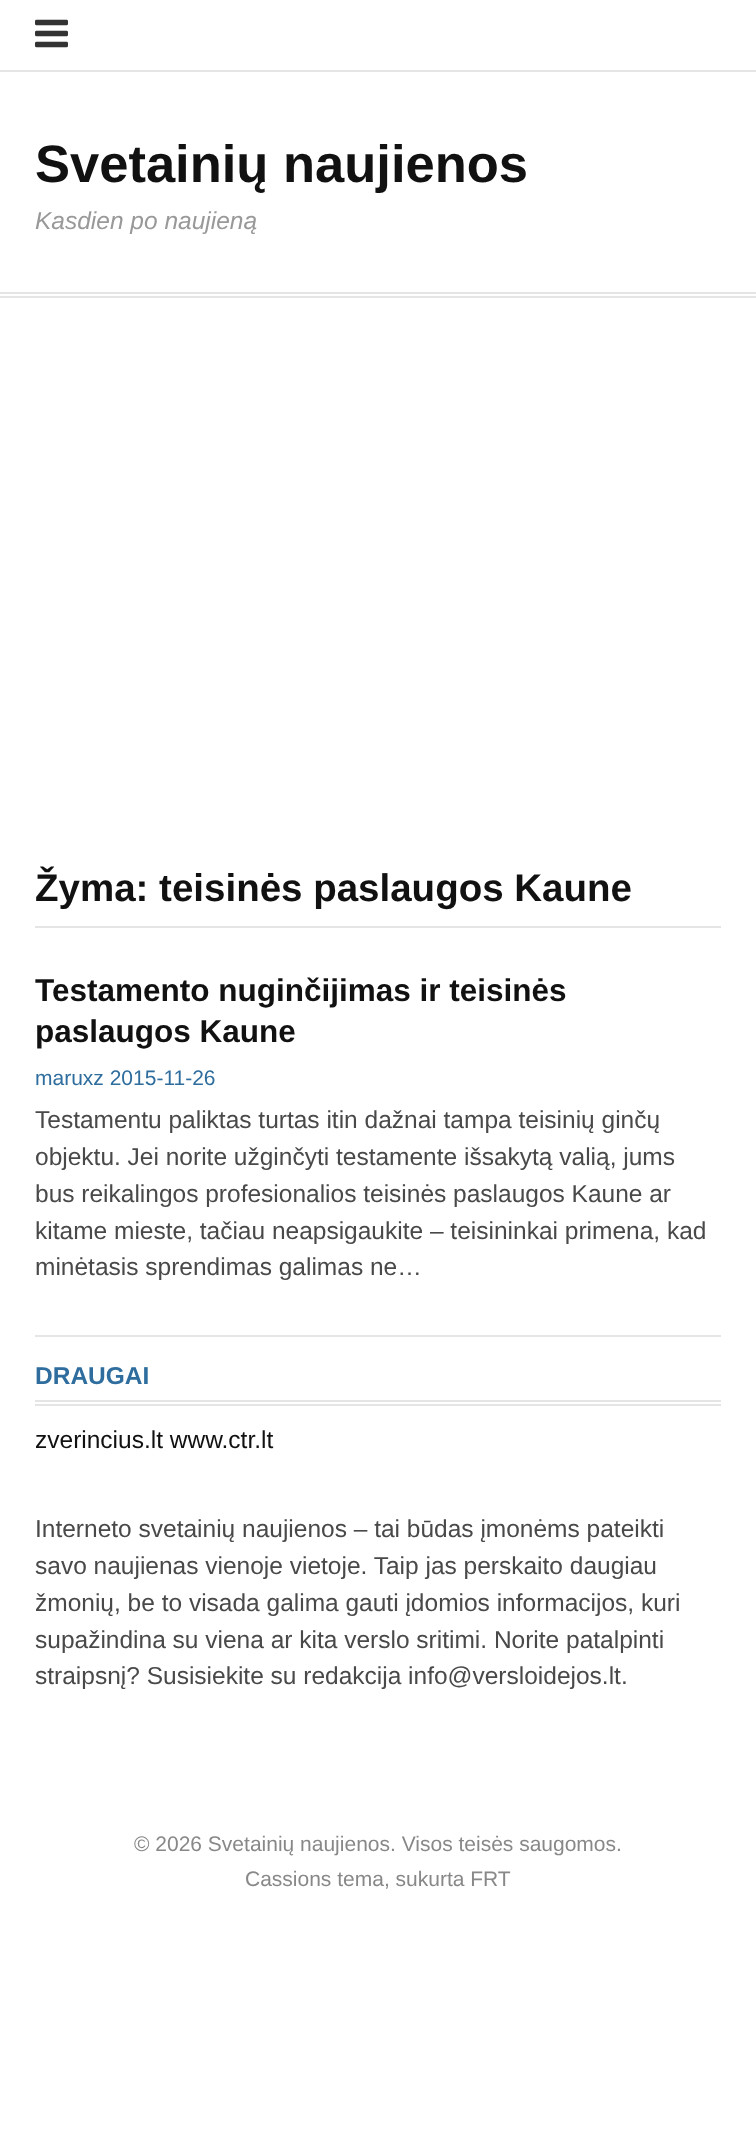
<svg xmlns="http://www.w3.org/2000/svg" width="756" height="2150">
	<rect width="100%" height="100%" fill="#FFFFFF" />
	<rect x="0" y="292" width="756" height="2" fill="#E5E5E5" />
	<rect x="0" y="296" width="756" height="2" fill="#E5E5E5" />
	<rect x="0" y="70" width="756" height="2" fill="#E5E5E5" />
	<image x="35" y="19" width="33" height="29" href="assets/img1.png" />
	<text x="35" y="182" font-family="Liberation Sans" font-size="52.5" font-weight="700" fill="#111111">Svetainių naujienos</text>
	<text x="35" y="229" font-family="Liberation Sans" font-size="24.5" font-style="italic" fill="#999999">Kasdien po naujieną</text>
	<rect x="35" y="926" width="686" height="2" fill="#E5E5E5" />
	<text x="35" y="901" font-family="Liberation Sans" font-size="38.5" font-weight="700" fill="#111111">Žyma: teisinės paslaugos Kaune</text>
	<rect x="35" y="1335" width="686" height="2" fill="#E6E6E6" />
	<g font-family="Liberation Sans" font-size="31.5" font-weight="700" fill="#111111">
		<text x="35" y="1001">Testamento nuginčijimas ir teisinės</text>
		<text x="35" y="1042">paslaugos Kaune</text>
	</g>
	<text x="35" y="1085" font-family="Liberation Sans" font-size="21" fill="#2E6D9D">maruxz 2015-11-26</text>
	<g font-family="Liberation Sans" font-size="24.5" fill="#494949">
		<text x="35" y="1128">Testamentu paliktas turtas itin dažnai tampa teisinių ginčų</text>
		<text x="35" y="1165">objektu. Jei norite užginčyti testamente išsakytą valią, jums</text>
		<text x="35" y="1202">bus reikalingos profesionalios teisinės paslaugos Kaune ar</text>
		<text x="35" y="1239">kitame mieste, tačiau neapsigaukite – teisininkai primena, kad</text>
		<text x="35" y="1275">minėtasis sprendimas galimas ne…</text>
	</g>
	<rect x="35" y="1400" width="686" height="2" fill="#E5E5E5" />
	<rect x="35" y="1404" width="686" height="2" fill="#E5E5E5" />
	<text x="35" y="1384" font-family="Liberation Sans" font-size="24.5" font-weight="700" fill="#2E6D9D">DRAUGAI</text>
	<text x="35" y="1448" font-family="Liberation Sans" font-size="24.5" fill="#111111">zverincius.lt www.ctr.lt</text>
	<g font-family="Liberation Sans" font-size="24.5" fill="#494949">
		<text x="35" y="1537">Interneto svetainių naujienos – tai būdas įmonėms pateikti</text>
		<text x="35" y="1574">savo naujienas vienoje vietoje. Taip jas perskaito daugiau</text>
		<text x="35" y="1611">žmonių, be to visada galima gauti įdomios informacijos, kuri</text>
		<text x="35" y="1648">supažindina su viena ar kita verslo sritimi. Norite patalpinti</text>
		<text x="35" y="1684">straipsnį? Susisiekite su redakcija info@versloidejos.lt.</text>
	</g>
	<g font-family="Liberation Sans" font-size="21" fill="#888888">
		<text x="134" y="1851">© 2026 Svetainių naujienos. Visos teisės saugomos.</text>
		<text x="245" y="1886">Cassions tema, sukurta FRT</text>
	</g>
</svg>
